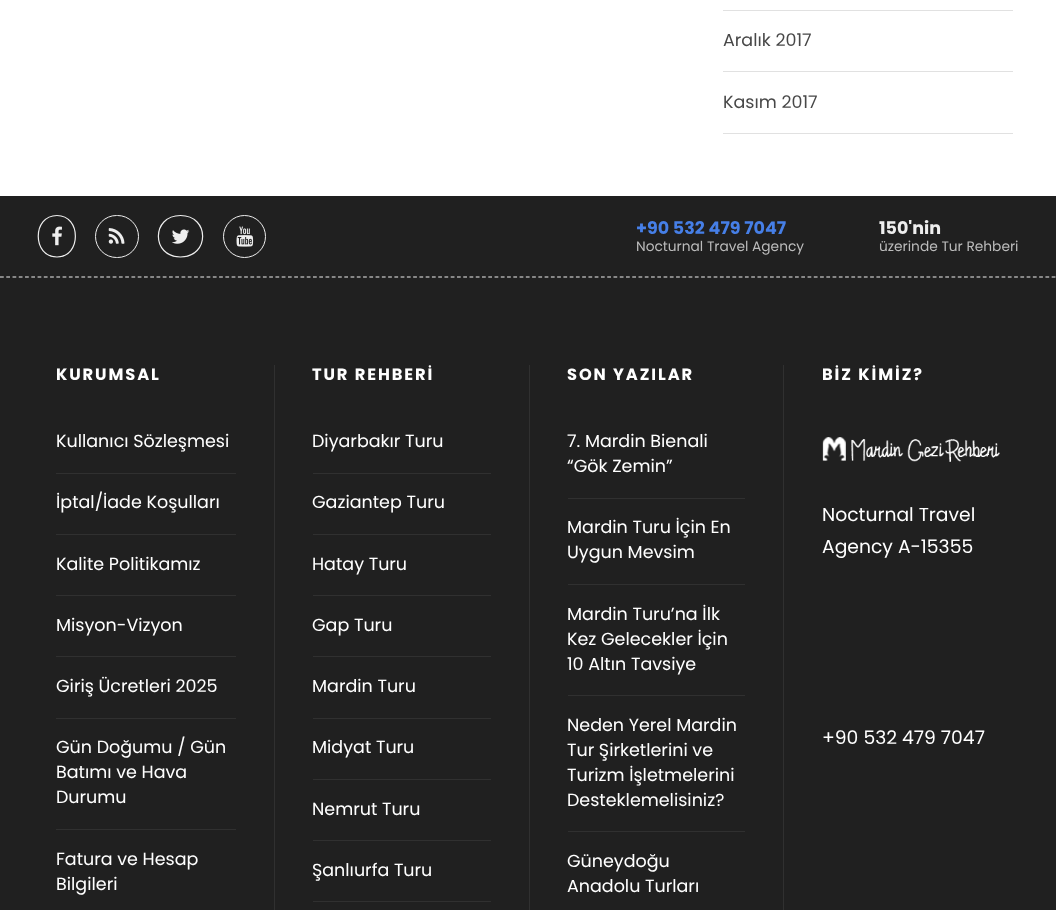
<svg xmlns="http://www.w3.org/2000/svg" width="1056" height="910">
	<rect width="100%" height="100%" fill="#FFFFFF" />
	<rect x="723" y="10" width="290" height="1" fill="#E1E1E1" />
	<rect x="723" y="71" width="290" height="1" fill="#E1E1E1" />
	<text x="723" y="46" font-family="Poppins" font-size="17.5" fill="#484848">Aralık 2017</text>
	<rect x="723" y="133" width="290" height="1" fill="#E1E1E1" />
	<text x="723" y="108" font-family="Poppins" font-size="17.5" fill="#484848">Kasım 2017</text>
	<rect x="0" y="196" width="1056" height="714" fill="#202020" />
	<path d="M0 277H1056" fill="none" stroke="#EEEEEE" stroke-width="1.2" stroke-dasharray="3.75 2.51" />
	<path d="M57 215.5C81.5 215.5 81.5 257 57 257C32 257 32 215.5 57 215.5Z" fill="none" stroke="#EEEEEE" stroke-width="1.2" />
	<image x="52" y="226" width="10" height="20" href="assets/img1.png" />
	<rect x="95.5" y="215.5" width="43" height="42" rx="21" fill="none" stroke="#EEEEEE" />
	<image x="108" y="228" width="17" height="16" href="assets/img2.png" />
	<path d="M180.5 215.5C210 215.5 210 257 180.5 257C151 257 151 215.5 180.5 215.5Z" fill="none" stroke="#EEEEEE" stroke-width="1.2" />
	<image x="172" y="229" width="18" height="15" href="assets/img3.png" />
	<circle cx="244.5" cy="236.5" r="21" fill="none" stroke="#EEEEEE" />
	<image x="236" y="226" width="18" height="21" href="assets/img4.png" />
	<text x="636" y="234" font-family="Poppins" font-size="17.5" font-weight="700" fill="#467FE7">+90 532 479 7047</text>
	<text x="636" y="251" font-family="Poppins" font-size="13.75" fill="#BBBBBB">Nocturnal Travel Agency</text>
	<text x="879" y="234" font-family="Poppins" font-size="17.5" font-weight="700" fill="#EEEEEE">150'nin</text>
	<text x="879" y="251" font-family="Poppins" font-size="13.75" fill="#BBBBBB">üzerinde Tur Rehberi</text>
	<text x="56" y="380" font-family="Poppins" font-size="16.25" font-weight="700" letter-spacing="1.9" fill="#FFFFFF">KURUMSAL</text>
	<rect x="56" y="473" width="180" height="1" fill="#303030" />
	<text x="56" y="447" font-family="Poppins" font-size="17.5" fill="#FFFFFF">Kullanıcı Sözleşmesi</text>
	<rect x="56" y="534" width="180" height="1" fill="#303030" />
	<text x="56" y="508" font-family="Poppins" font-size="17.5" fill="#FFFFFF">İptal/İade Koşulları</text>
	<rect x="56" y="595" width="180" height="1" fill="#303030" />
	<text x="56" y="570" font-family="Poppins" font-size="17.5" fill="#FFFFFF">Kalite Politikamız</text>
	<rect x="56" y="656" width="180" height="1" fill="#303030" />
	<text x="56" y="631" font-family="Poppins" font-size="17.5" fill="#FFFFFF">Misyon-Vizyon</text>
	<rect x="56" y="718" width="180" height="1" fill="#303030" />
	<text x="56" y="692" font-family="Poppins" font-size="17.5" fill="#FFFFFF">Giriş Ücretleri 2025</text>
	<rect x="56" y="829" width="180" height="1" fill="#303030" />
	<g font-family="Poppins" font-size="17.5" fill="#FFFFFF">
		<text x="56" y="753">Gün Doğumu / Gün</text>
		<text x="56" y="778">Batımı ve Hava</text>
		<text x="56" y="803">Durumu</text>
		<text x="56" y="865">Fatura ve Hesap</text>
		<text x="56" y="890">Bilgileri</text>
	</g>
	<rect x="274" y="365" width="1" height="545" fill="#303030" />
	<text x="312" y="380" font-family="Poppins" font-size="16.25" font-weight="700" letter-spacing="1.9" fill="#FFFFFF">TUR REHBERİ</text>
	<rect x="313" y="473" width="178" height="1" fill="#303030" />
	<text x="312" y="447" font-family="Poppins" font-size="17.5" fill="#FFFFFF">Diyarbakır Turu</text>
	<rect x="313" y="534" width="178" height="1" fill="#303030" />
	<text x="312" y="508" font-family="Poppins" font-size="17.5" fill="#FFFFFF">Gaziantep Turu</text>
	<rect x="313" y="595" width="178" height="1" fill="#303030" />
	<text x="312" y="570" font-family="Poppins" font-size="17.5" fill="#FFFFFF">Hatay Turu</text>
	<rect x="313" y="656" width="178" height="1" fill="#303030" />
	<text x="312" y="631" font-family="Poppins" font-size="17.5" fill="#FFFFFF">Gap Turu</text>
	<rect x="313" y="718" width="178" height="1" fill="#303030" />
	<text x="312" y="692" font-family="Poppins" font-size="17.5" fill="#FFFFFF">Mardin Turu</text>
	<rect x="313" y="779" width="178" height="1" fill="#303030" />
	<text x="312" y="753" font-family="Poppins" font-size="17.5" fill="#FFFFFF">Midyat Turu</text>
	<rect x="313" y="840" width="178" height="1" fill="#303030" />
	<text x="312" y="815" font-family="Poppins" font-size="17.5" fill="#FFFFFF">Nemrut Turu</text>
	<rect x="313" y="901" width="178" height="1" fill="#303030" />
	<text x="312" y="876" font-family="Poppins" font-size="17.5" fill="#FFFFFF">Şanlıurfa Turu</text>
	<rect x="529" y="365" width="1" height="545" fill="#303030" />
	<text x="567" y="380" font-family="Poppins" font-size="16.25" font-weight="700" letter-spacing="1.9" fill="#FFFFFF">SON YAZILAR</text>
	<rect x="568" y="498" width="177" height="1" fill="#303030" />
	<g font-family="Poppins" font-size="17.5" fill="#FFFFFF">
		<text x="567" y="447">7. Mardin Bienali</text>
		<text x="567" y="472">“Gök Zemin”</text>
	</g>
	<rect x="568" y="584" width="177" height="1" fill="#303030" />
	<g font-family="Poppins" font-size="17.5" fill="#FFFFFF">
		<text x="567" y="533">Mardin Turu İçin En</text>
		<text x="567" y="558">Uygun Mevsim</text>
	</g>
	<rect x="568" y="695" width="177" height="1" fill="#303030" />
	<g font-family="Poppins" font-size="17.5" fill="#FFFFFF">
		<text x="567" y="620">Mardin Turu’na İlk</text>
		<text x="567" y="645">Kez Gelecekler İçin</text>
		<text x="567" y="670">10 Altın Tavsiye</text>
	</g>
	<rect x="568" y="831" width="177" height="1" fill="#303030" />
	<g font-family="Poppins" font-size="17.5" fill="#FFFFFF">
		<text x="567" y="731">Neden Yerel Mardin</text>
		<text x="567" y="756">Tur Şirketlerini ve</text>
		<text x="567" y="781">Turizm İşletmelerini</text>
		<text x="567" y="806">Desteklemelisiniz?</text>
		<text x="567" y="867">Güneydoğu</text>
		<text x="567" y="892">Anadolu Turları</text>
	</g>
	<rect x="783" y="365" width="1" height="545" fill="#303030" />
	<text x="822" y="380" font-family="Poppins" font-size="16.25" font-weight="700" letter-spacing="1.9" fill="#FFFFFF">BİZ KİMİZ?</text>
	<image x="822" y="437" width="178" height="25" href="assets/img5.png" />
	<g font-family="Poppins" font-size="18.75" fill="#FFFFFF">
		<text x="822" y="521">Nocturnal Travel</text>
		<text x="822" y="553">Agency A-15355</text>
		<text x="822" y="744">+90 532 479 7047</text>
	</g>
</svg>
